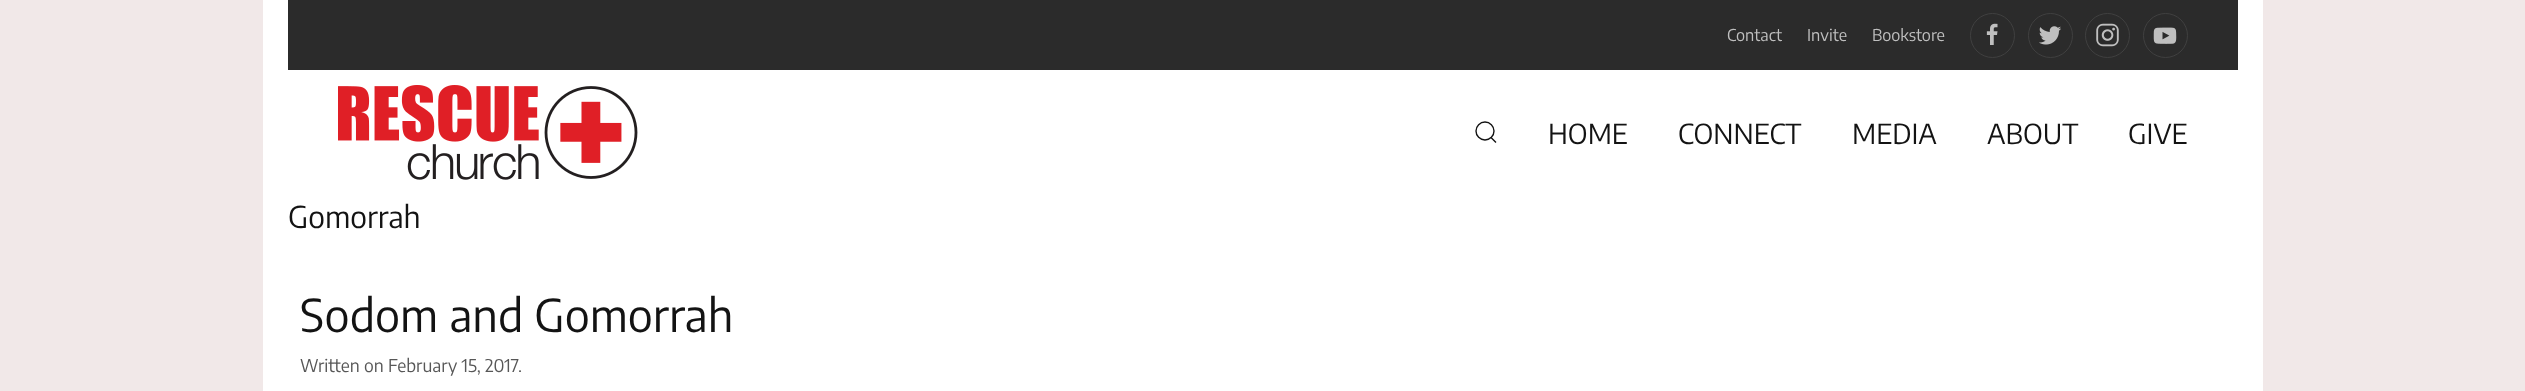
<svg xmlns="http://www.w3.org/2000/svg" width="2525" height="391">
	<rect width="100%" height="100%" fill="#F1E8E8" />
	<rect x="263" y="0" width="2000" height="391" fill="#FFFFFF" />
	<rect x="288" y="0" width="1950" height="70" fill="#2B2B2B" />
	<g font-family="Encode Sans Condensed" font-size="16.25" font-weight="100" fill="#BFBFBF">
		<text x="1727" y="41">Contact</text>
		<text x="1807" y="41">Invite</text>
		<text x="1872" y="41">Bookstore</text>
	</g>
	<circle cx="1992.5" cy="35.5" r="22" fill="none" stroke="#404040" />
	<image x="1986" y="23" width="12" height="22" href="assets/img1.png" />
	<circle cx="2050.5" cy="35.5" r="22" fill="none" stroke="#404040" />
	<image x="2039" y="26" width="22" height="19" href="assets/img2.png" />
	<circle cx="2107.5" cy="35.5" r="22" fill="none" stroke="#404040" />
	<image x="2096" y="23" width="23" height="24" href="assets/img3.png" />
	<circle cx="2165.5" cy="35.5" r="22" fill="none" stroke="#404040" />
	<image x="2153" y="27" width="24" height="17" href="assets/img4.png" />
	<image x="338" y="85" width="300" height="95" href="assets/img5.png" />
	<circle cx="1485" cy="131" r="9" fill="none" stroke="#131313" stroke-width="1.4" />
	<path d="M1491 137.5L1496 142.5Z" fill="none" stroke="#131313" stroke-width="1.4" />
	<g font-family="Encode Sans Condensed" font-size="27.5" font-weight="100" fill="#131313">
		<text x="1548" y="144">HOME</text>
		<text x="1678" y="144">CONNECT</text>
		<text x="1852" y="144">MEDIA</text>
		<text x="1987" y="144">ABOUT</text>
		<text x="2128" y="144">GIVE</text>
	</g>
	<text x="288" y="228" font-family="Encode Sans Condensed" font-size="30" font-weight="100" fill="#131313">Gomorrah</text>
	<text x="300" y="332" font-family="Encode Sans Condensed" font-size="45" font-weight="100" fill="#131313">Sodom and Gomorrah</text>
	<g font-family="Encode Sans Condensed" font-size="17.5" font-weight="100" fill="#575757">
		<text x="300" y="372">Written on</text>
		<text x="388" y="372">February 15, 2017</text>
		<text x="518" y="372">.</text>
	</g>
</svg>
